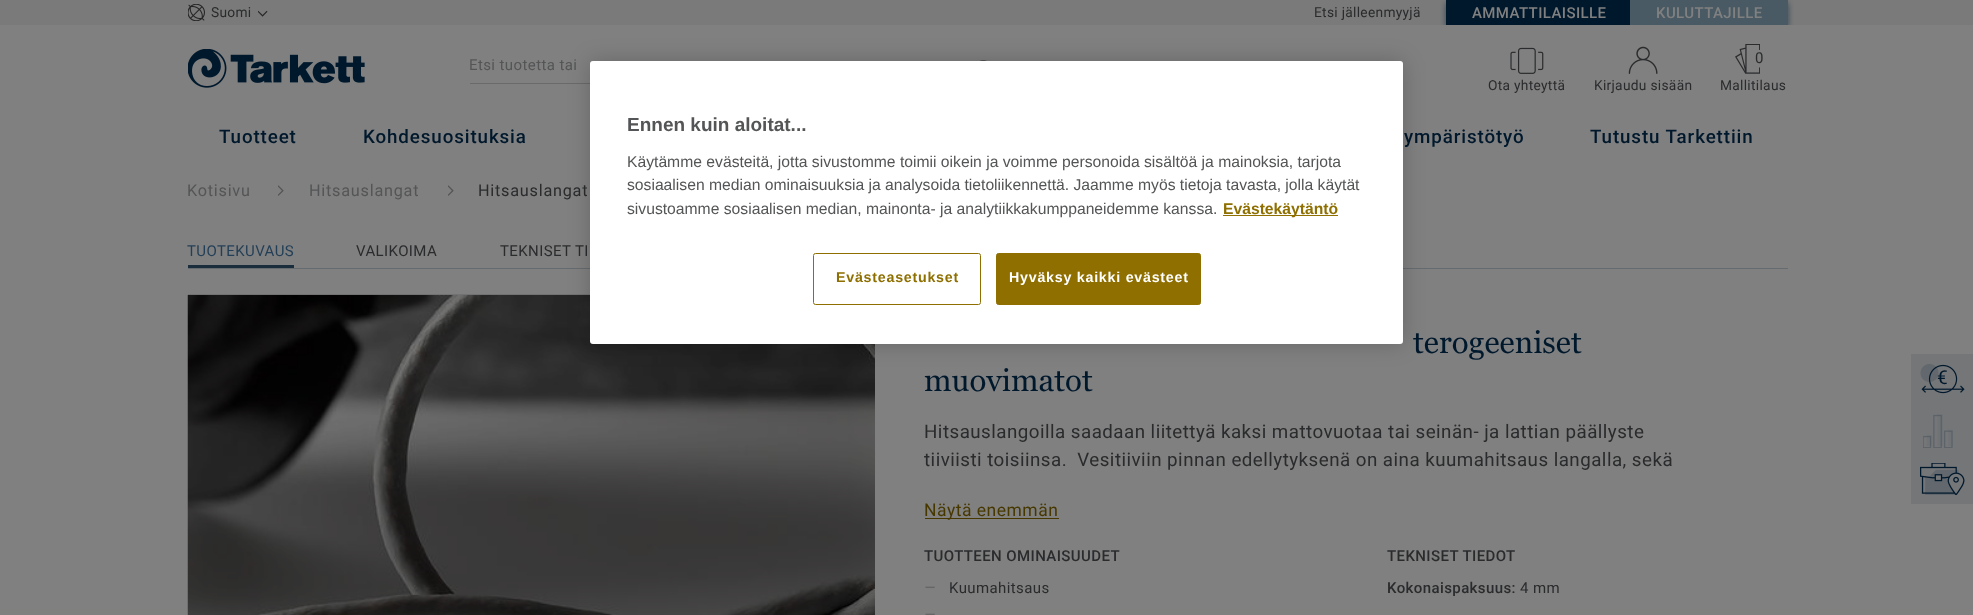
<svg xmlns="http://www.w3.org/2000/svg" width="1973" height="615">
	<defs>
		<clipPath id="clip1"><rect x="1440" y="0" width="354" height="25" /></clipPath>
		<clipPath id="clip2"><path d="M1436 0H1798V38H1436ZM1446 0H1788V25H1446Z" clip-rule="evenodd" /></clipPath>
	</defs>
	<rect width="100%" height="100%" fill="#808080" />
	<rect x="0" y="0" width="1973" height="25" fill="#7A7A7A" />
	<image x="188" y="4" width="17" height="17" href="assets/img1.png" />
	<text x="211" y="17" font-family="Roboto" font-size="13.75" letter-spacing="0.3" fill="#2A2B2D">Suomi</text>
	<image x="258" y="10" width="10" height="7" href="assets/img2.png" />
	<text x="1314" y="17" font-family="Roboto" font-size="13.75" letter-spacing="0.3" fill="#2A2B2D">Etsi jälleenmyyjä</text>
	<g clip-path="url(#clip1)">
		<g clip-path="url(#clip2)">
			<rect x="1446" y="3" width="342" height="25" fill="#314754" filter="blur(3px)" />
		</g>
	</g>
	<rect x="1446" y="0" width="184" height="25" fill="#00182C" />
	<text x="1472" y="18" font-family="Roboto" font-size="15" font-weight="500" letter-spacing="0.4" fill="#808080">AMMATTILAISILLE</text>
	<rect x="1630" y="0" width="158" height="25" fill="#002B44" fill-opacity="0.4" />
	<text x="1656" y="18" font-family="Roboto" font-size="15" font-weight="500" letter-spacing="0.4" fill="#808080">KULUTTAJILLE</text>
	<image x="188" y="49" width="177" height="39" href="assets/img3.png" />
	<rect x="470" y="83" width="120" height="1" fill="#6A6A6B" />
	<text x="469" y="70" font-family="Roboto" font-size="15" letter-spacing="0.4" fill="#545556">Etsi tuotetta tai</text>
	<image x="979" y="60" width="8" height="1" href="assets/img4.png" />
	<image x="1510" y="47" width="34" height="27" href="assets/img5.png" />
	<text x="1488" y="90" font-family="Roboto" font-size="13.75" letter-spacing="0.3" fill="#2A2B2D">Ota yhteyttä</text>
	<image x="1628" y="46" width="30" height="28" href="assets/img6.png" />
	<text x="1594" y="90" font-family="Roboto" font-size="13.75" letter-spacing="0.3" fill="#2A2B2D">Kirjaudu sisään</text>
	<image x="1735" y="44" width="25" height="30" href="assets/img7.png" />
	<text x="1755" y="63" font-family="Roboto" font-size="15" letter-spacing="1" fill="#2A2B2D">0</text>
	<text x="1720" y="90" font-family="Roboto" font-size="13.75" letter-spacing="0.3" fill="#2A2B2D">Mallitilaus</text>
	<g font-family="Roboto" font-size="18.75" font-weight="500" letter-spacing="0.9" fill="#00182C">
		<text x="219" y="143">Tuotteet</text>
		<text x="363" y="143">Kohdesuosituksia</text>
		<text x="1404" y="143">ympäristötyö</text>
		<text x="1590" y="143">Tutustu Tarkettiin</text>
	</g>
	<text x="187" y="196" font-family="Roboto" font-size="16.25" letter-spacing="0.75" fill="#545556">Kotisivu</text>
	<image x="278" y="185" width="6" height="11" href="assets/img8.png" />
	<text x="309" y="196" font-family="Roboto" font-size="16.25" letter-spacing="0.75" fill="#545556">Hitsauslangat</text>
	<image x="448" y="185" width="6" height="11" href="assets/img8.png" />
	<text x="478" y="196" font-family="Roboto" font-size="16.25" letter-spacing="0.75" fill="#2A2B2D">Hitsauslangat</text>
	<rect x="188" y="265" width="106" height="3" fill="#1A2D3D" />
	<text x="187" y="256" font-family="Roboto" font-size="15" letter-spacing="0.4" fill="#233F57">TUOTEKUVAUS</text>
	<g font-family="Roboto" font-size="15" letter-spacing="0.4" fill="#2A2B2D">
		<text x="356" y="256">VALIKOIMA</text>
		<text x="500" y="256">TEKNISET TI</text>
	</g>
	<rect x="188" y="268" width="1600" height="1" fill="#666B6F" />
	<rect x="188.5" y="294.5" width="686" height="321" fill="none" stroke="#727272" />
	<image x="187" y="295" width="688" height="320" href="assets/img9.png" />
	<g font-family="Georgia" font-size="31.25" fill="#00182C">
		<text x="1413" y="353">terogeeniset</text>
		<text x="924" y="391">muovimatot</text>
	</g>
	<g font-family="Roboto" font-size="18.75" letter-spacing="0.47" fill="#2A2B2D">
		<text x="924" y="438">Hitsauslangoilla saadaan liitettyä kaksi mattovuotaa tai seinän- ja lattian päällyste</text>
		<text x="924" y="466" xml:space="preserve">tiiviisti toisiinsa.  Vesitiiviin pinnan edellytyksenä on aina kuumahitsaus langalla, sekä</text>
	</g>
	<rect x="925" y="518" width="134" height="1" fill="#473800" />
	<text x="924" y="516" font-family="Roboto" font-size="17.5" letter-spacing="0.5" fill="#473800">Näytä enemmän</text>
	<text x="924" y="561" font-family="Roboto" font-size="15" font-weight="500" letter-spacing="0.4" fill="#2A2B2D">TUOTTEEN OMINAISUUDET</text>
	<text x="924" y="594" font-family="Roboto" font-size="18.75" letter-spacing="0.4" fill="#656666">–</text>
	<text x="949" y="593" font-family="Roboto" font-size="15" letter-spacing="0.4" fill="#2A2B2D">Kuumahitsaus</text>
	<text x="924" y="621" font-family="Roboto" font-size="18.75" letter-spacing="0.4" fill="#656666">–</text>
	<g font-family="Roboto" font-size="15" font-weight="500" letter-spacing="0.4" fill="#2A2B2D">
		<text x="1387" y="561">TEKNISET TIEDOT</text>
		<text x="1387" y="593">Kokonaispaksuus:</text>
	</g>
	<text x="1520" y="593" font-family="Roboto" font-size="15" letter-spacing="0.4" fill="#2A2B2D">4 mm</text>
	<rect x="1911" y="354" width="62" height="150" fill="#747678" />
	<image x="1920" y="364" width="45" height="30" href="assets/img10.png" />
	<text x="1937" y="384" font-family="Roboto" font-size="19" letter-spacing="2" fill="#00182C">€</text>
	<image x="1923" y="414" width="30" height="34" href="assets/img11.png" />
	<image x="1920" y="463" width="45" height="32" href="assets/img12.png" />
	<rect x="590" y="61" width="813" height="283" rx="3" fill="#000000" fill-opacity="0.2" filter="blur(11px)" />
	<rect x="590" y="61" width="813" height="283" rx="3" fill="#FFFFFF" />
	<text x="627" y="131" font-family="Liberation Sans" font-size="19" font-weight="700" fill="#545556">Ennen kuin aloitat...</text>
	<g font-family="Liberation Sans" font-size="15.7" fill="#545556">
		<text x="627" y="167">Käytämme evästeitä, jotta sivustomme toimii oikein ja voimme personoida sisältöä ja mainoksia, tarjota</text>
		<text x="627" y="190">sosiaalisen median ominaisuuksia ja analysoida tietoliikennettä. Jaamme myös tietoja tavasta, jolla käytät</text>
		<text x="627" y="214">sivustoamme sosiaalisen median, mainonta- ja analytiikkakumppaneidemme kanssa.</text>
	</g>
	<rect x="1223" y="215" width="115" height="1" fill="#8E6F00" />
	<text x="1223" y="214" font-family="Liberation Sans" font-size="15.7" font-weight="700" fill="#8E6F00">Evästekäytäntö</text>
	<rect x="813.5" y="253.5" width="167" height="51" rx="2" fill="none" stroke="#8E6F00" />
	<text x="836" y="282" font-family="Liberation Sans" font-size="14.25" font-weight="700" letter-spacing="0.75" fill="#8E6F00">Evästeasetukset</text>
	<rect x="996.5" y="253.5" width="204" height="51" rx="2" fill="#8E6F00" stroke="#8E6F00" />
	<text x="1009" y="282" font-family="Liberation Sans" font-size="14.25" font-weight="700" letter-spacing="0.75" fill="#FFFFFF">Hyväksy kaikki evästeet</text>
</svg>
